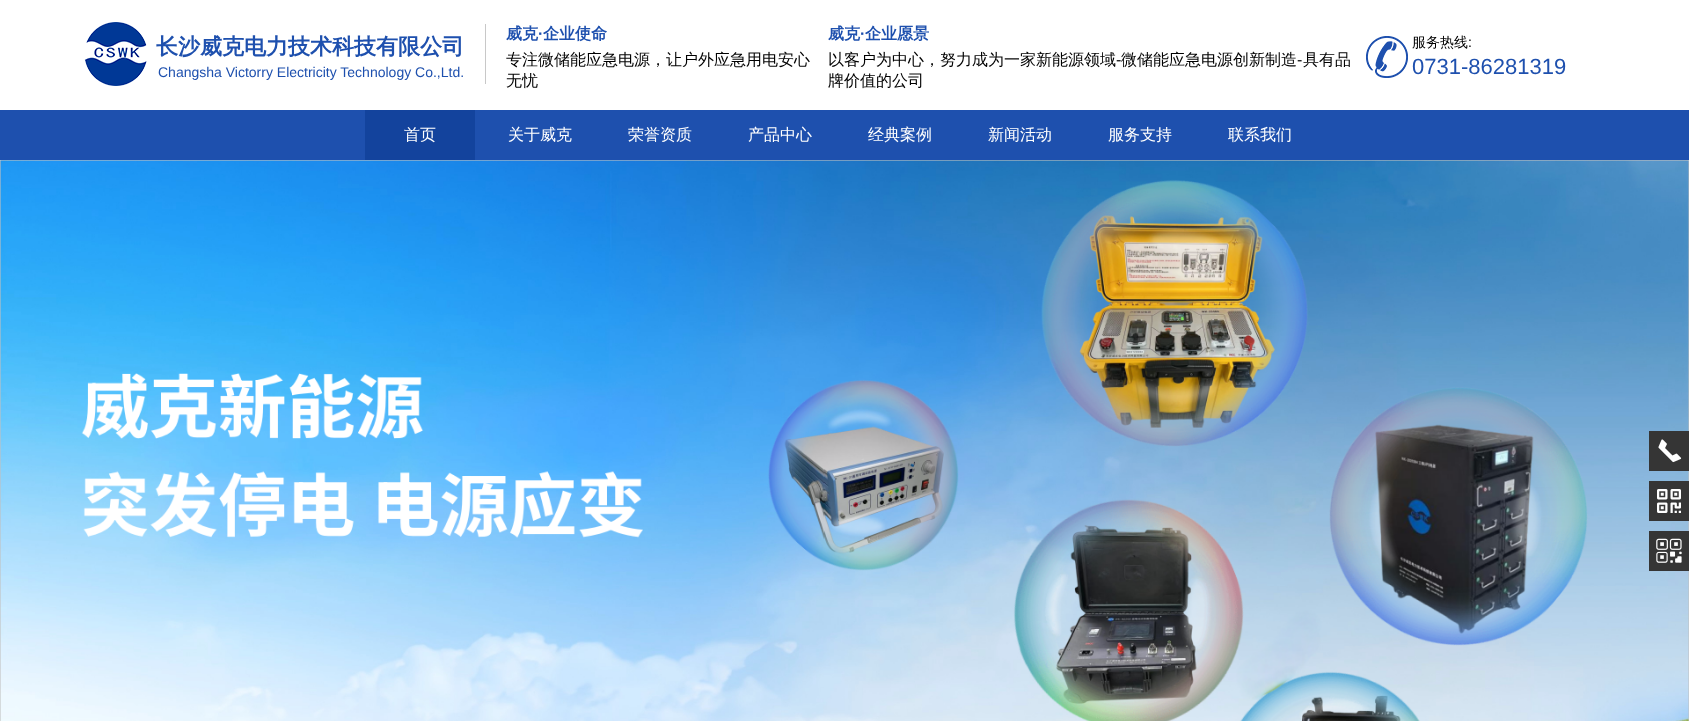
<svg xmlns="http://www.w3.org/2000/svg" width="1689" height="721">
	<rect width="100%" height="100%" fill="#FFFFFF" />
	<image x="84" y="22" width="63" height="64" href="assets/img1.png" />
	<text x="156" y="54" font-family="WenQuanYi Zen Hei" font-size="22" font-weight="700" fill="#1E50AE">长沙威克电力技术科技有限公司</text>
	<text x="158" y="77" font-family="Liberation Sans" font-size="14" fill="#1E50AE">Changsha Victorry Electricity Technology Co.,Ltd.</text>
	<rect x="485" y="24" width="1" height="60" fill="#C8C8C8" />
	<text x="506" y="39" font-family="WenQuanYi Zen Hei" font-size="16" font-weight="700" fill="#1E50AE">威克</text>
	<text x="538" y="39" font-family="Liberation Sans" font-size="16" font-weight="700" fill="#1E50AE">·</text>
	<text x="543" y="39" font-family="WenQuanYi Zen Hei" font-size="16" font-weight="700" fill="#1E50AE">企业使命</text>
	<g font-family="WenQuanYi Zen Hei" font-size="16" font-weight="500" fill="#000000">
		<text x="506" y="65">专注微储能应急电源，让户外应急用电安心</text>
		<text x="506" y="86">无忧</text>
	</g>
	<text x="828" y="39" font-family="WenQuanYi Zen Hei" font-size="16" font-weight="700" fill="#1E50AE">威克</text>
	<text x="860" y="39" font-family="Liberation Sans" font-size="16" font-weight="700" fill="#1E50AE">·</text>
	<text x="865" y="39" font-family="WenQuanYi Zen Hei" font-size="16" font-weight="700" fill="#1E50AE">企业愿景</text>
	<text x="828" y="65" font-family="WenQuanYi Zen Hei" font-size="16" font-weight="500" fill="#000000">以客户为中心，努力成为一家新能源领域</text>
	<text x="1116" y="65" font-family="Liberation Sans" font-size="16" fill="#000000">-</text>
	<text x="1121" y="65" font-family="WenQuanYi Zen Hei" font-size="16" font-weight="500" fill="#000000">微储能应急电源创新制造</text>
	<text x="1297" y="65" font-family="Liberation Sans" font-size="16" fill="#000000">-</text>
	<g font-family="WenQuanYi Zen Hei" font-size="16" font-weight="500" fill="#000000">
		<text x="1303" y="65">具有品</text>
		<text x="828" y="86">牌价值的公司</text>
	</g>
	<image x="1366" y="36" width="42" height="42" href="assets/img2.png" />
	<text x="1412" y="47" font-family="WenQuanYi Zen Hei" font-size="14" font-weight="500" fill="#000000">服务热线</text>
	<text x="1468" y="47" font-family="Liberation Sans" font-size="14" fill="#000000">:</text>
	<text x="1412" y="74" font-family="Liberation Sans" font-size="22" fill="#1E50AE">0731-86281319</text>
	<rect x="0" y="110" width="1689" height="50" fill="#1E50AE" />
	<rect x="365" y="110" width="110" height="50" fill="#13439D" />
	<g font-family="WenQuanYi Zen Hei" font-size="16" font-weight="500" fill="#FFFFFF">
		<text x="404" y="140">首页</text>
		<text x="508" y="140">关于威克</text>
		<text x="628" y="140">荣誉资质</text>
		<text x="748" y="140">产品中心</text>
		<text x="868" y="140">经典案例</text>
		<text x="988" y="140">新闻活动</text>
		<text x="1108" y="140">服务支持</text>
		<text x="1228" y="140">联系我们</text>
	</g>
	<image x="0" y="160" width="1689" height="561" href="assets/img6.png" />
	<rect x="1649" y="431" width="40" height="40" fill="#353535" />
	<image x="1658" y="439" width="24" height="24" href="assets/img3.png" />
	<rect x="1649" y="481" width="40" height="40" fill="#353535" />
	<image x="1657" y="489" width="24" height="24" href="assets/img4.png" />
	<rect x="1649" y="531" width="40" height="40" fill="#353535" />
	<image x="1656" y="538" width="26" height="25" href="assets/img5.png" />
</svg>
